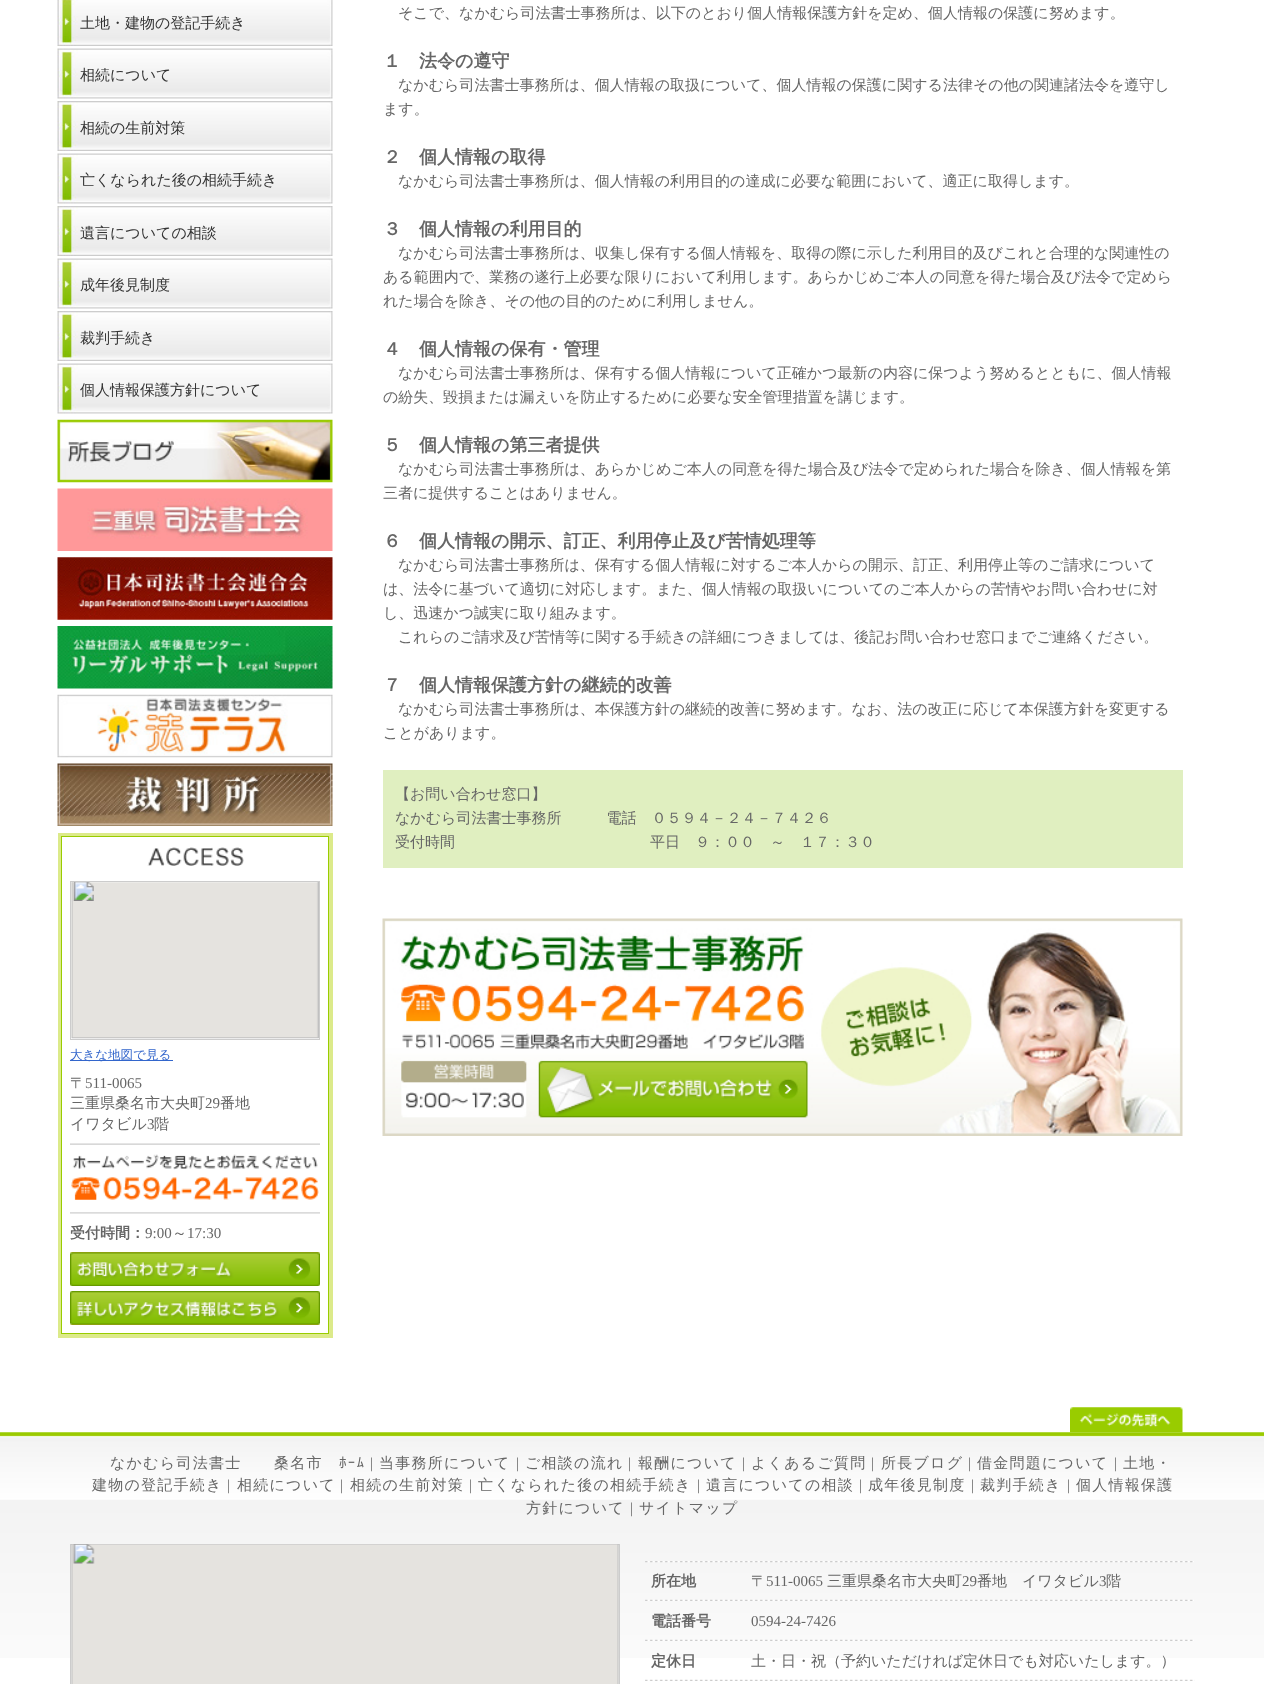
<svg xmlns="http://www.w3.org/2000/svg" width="1264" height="1684">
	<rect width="100%" height="100%" fill="#FFFFFF" />
	<image x="57" y="0" width="276" height="46" href="assets/img1.png" />
	<text x="80" y="28" font-family="WenQuanYi Zen Hei" font-size="15" font-weight="500" fill="#333333">土地・建物の登記手続き</text>
	<image x="57" y="48" width="276" height="51" href="assets/img2.png" />
	<text x="80" y="80" font-family="WenQuanYi Zen Hei" font-size="15" font-weight="500" fill="#333333">相続について</text>
	<image x="57" y="101" width="276" height="50" href="assets/img3.png" />
	<text x="80" y="133" font-family="WenQuanYi Zen Hei" font-size="15" font-weight="500" fill="#333333">相続の生前対策</text>
	<image x="57" y="153" width="276" height="51" href="assets/img4.png" />
	<text x="80" y="185" font-family="WenQuanYi Zen Hei" font-size="15" font-weight="500" fill="#333333">亡くなられた後の相続手続き</text>
	<image x="57" y="206" width="276" height="50" href="assets/img5.png" />
	<text x="80" y="238" font-family="WenQuanYi Zen Hei" font-size="15" font-weight="500" fill="#333333">遺言についての相談</text>
	<image x="57" y="258" width="276" height="51" href="assets/img4.png" />
	<text x="80" y="290" font-family="WenQuanYi Zen Hei" font-size="15" font-weight="500" fill="#333333">成年後見制度</text>
	<image x="57" y="311" width="276" height="50" href="assets/img6.png" />
	<text x="80" y="343" font-family="WenQuanYi Zen Hei" font-size="15" font-weight="500" fill="#333333">裁判手続き</text>
	<image x="57" y="363" width="276" height="51" href="assets/img4.png" />
	<text x="80" y="395" font-family="WenQuanYi Zen Hei" font-size="15" font-weight="500" fill="#333333">個人情報保護方針について</text>
	<image x="57" y="419" width="276" height="64" href="assets/img7.png" />
	<image x="57" y="488" width="276" height="63" href="assets/img8.png" />
	<image x="57" y="557" width="276" height="63" href="assets/img9.png" />
	<image x="57" y="626" width="276" height="63" href="assets/img10.png" />
	<image x="57" y="694" width="276" height="64" href="assets/img11.png" />
	<image x="57" y="763" width="276" height="63" href="assets/img12.png" />
	<rect x="60" y="835" width="271" height="501" fill="none" stroke="#DCEA8A" stroke-width="4" />
	<image x="147" y="847" width="97" height="19" href="assets/img13.png" />
	<rect x="61.5" y="836.5" width="267" height="497" fill="none" stroke="#99CC00" />
	<rect x="70.5" y="881.5" width="249" height="158" fill="none" stroke="#CCCCCC" />
	<image x="71" y="882" width="248" height="157" href="assets/img14.png" />
	<rect x="70" y="1060" width="103" height="1" fill="#3366CC" />
	<text x="70" y="1059" font-family="WenQuanYi Zen Hei" font-size="12.5" font-weight="500" fill="#3366CC">大きな地図で見る</text>
	<text x="70" y="1088" font-family="WenQuanYi Zen Hei" font-size="15" font-weight="500" fill="#666666">〒</text>
	<text x="85" y="1088" font-family="Liberation Serif" font-size="15" fill="#666666">511-0065</text>
	<text x="70" y="1108" font-family="WenQuanYi Zen Hei" font-size="15" font-weight="500" fill="#666666">三重県桑名市大央町</text>
	<text x="205" y="1108" font-family="Liberation Serif" font-size="15" fill="#666666">29</text>
	<g font-family="WenQuanYi Zen Hei" font-size="15" font-weight="500" fill="#666666">
		<text x="220" y="1108">番地</text>
		<text x="70" y="1129">イワタビル</text>
	</g>
	<text x="147" y="1129" font-family="Liberation Serif" font-size="15" fill="#666666">3</text>
	<text x="154" y="1129" font-family="WenQuanYi Zen Hei" font-size="15" font-weight="500" fill="#666666">階</text>
	<image x="70" y="1143" width="250" height="71" href="assets/img15.png" />
	<text x="70" y="1238" font-family="WenQuanYi Zen Hei" font-size="15" font-weight="700" fill="#666666">受付時間：</text>
	<text x="145" y="1238" font-family="Liberation Serif" font-size="15" fill="#666666">9:00</text>
	<text x="172" y="1238" font-family="WenQuanYi Zen Hei" font-size="15" font-weight="500" fill="#666666">～</text>
	<text x="187" y="1238" font-family="Liberation Serif" font-size="15" fill="#666666">17:30</text>
	<image x="70" y="1252" width="250" height="1" href="assets/img16.png" />
	<image x="70" y="1252" width="250" height="34" href="assets/img17.png" />
	<image x="70" y="1324" width="250" height="1" href="assets/img18.png" />
	<image x="70" y="1291" width="250" height="34" href="assets/img19.png" />
	<text x="398" y="18" font-family="WenQuanYi Zen Hei" font-size="15" font-weight="500" fill="#666666">そこで、なかむら司法書士事務所は、以下のとおり個人情報保護方針を定め、個人情報の保護に努めます。</text>
	<text x="383" y="67" font-family="WenQuanYi Zen Hei" font-size="18" font-weight="700" fill="#666666">１　法令の遵守</text>
	<g font-family="WenQuanYi Zen Hei" font-size="15" font-weight="500" fill="#666666">
		<text x="398" y="90">なかむら司法書士事務所は、個人情報の取扱について、個人情報の保護に関する法律その他の関連諸法令を遵守し</text>
		<text x="383" y="114">ます。</text>
	</g>
	<text x="383" y="163" font-family="WenQuanYi Zen Hei" font-size="18" font-weight="700" fill="#666666">２　個人情報の取得</text>
	<text x="398" y="186" font-family="WenQuanYi Zen Hei" font-size="15" font-weight="500" fill="#666666">なかむら司法書士事務所は、個人情報の利用目的の達成に必要な範囲において、適正に取得します。</text>
	<text x="383" y="235" font-family="WenQuanYi Zen Hei" font-size="18" font-weight="700" fill="#666666">３　個人情報の利用目的</text>
	<g font-family="WenQuanYi Zen Hei" font-size="15" font-weight="500" fill="#666666">
		<text x="398" y="258">なかむら司法書士事務所は、収集し保有する個人情報を、取得の際に示した利用目的及びこれと合理的な関連性の</text>
		<text x="383" y="282">ある範囲内で、業務の遂行上必要な限りにおいて利用します。あらかじめご本人の同意を得た場合及び法令で定めら</text>
		<text x="383" y="306">れた場合を除き、その他の目的のために利用しません。</text>
	</g>
	<text x="383" y="355" font-family="WenQuanYi Zen Hei" font-size="18" font-weight="700" fill="#666666">４　個人情報の保有・管理</text>
	<g font-family="WenQuanYi Zen Hei" font-size="15" font-weight="500" fill="#666666">
		<text x="398" y="378">なかむら司法書士事務所は、保有する個人情報について正確かつ最新の内容に保つよう努めるとともに、個人情報</text>
		<text x="383" y="402">の紛失、毀損または漏えいを防止するために必要な安全管理措置を講じます。</text>
	</g>
	<text x="383" y="451" font-family="WenQuanYi Zen Hei" font-size="18" font-weight="700" fill="#666666">５　個人情報の第三者提供</text>
	<g font-family="WenQuanYi Zen Hei" font-size="15" font-weight="500" fill="#666666">
		<text x="398" y="474">なかむら司法書士事務所は、あらかじめご本人の同意を得た場合及び法令で定められた場合を除き、個人情報を第</text>
		<text x="383" y="498">三者に提供することはありません。</text>
	</g>
	<text x="383" y="547" font-family="WenQuanYi Zen Hei" font-size="18" font-weight="700" fill="#666666">６　個人情報の開示、訂正、利用停止及び苦情処理等</text>
	<g font-family="WenQuanYi Zen Hei" font-size="15" font-weight="500" fill="#666666">
		<text x="398" y="570">なかむら司法書士事務所は、保有する個人情報に対するご本人からの開示、訂正、利用停止等のご請求について</text>
		<text x="383" y="594">は、法令に基づいて適切に対応します。また、個人情報の取扱いについてのご本人からの苦情やお問い合わせに対</text>
		<text x="383" y="618">し、迅速かつ誠実に取り組みます。</text>
		<text x="398" y="642">これらのご請求及び苦情等に関する手続きの詳細につきましては、後記お問い合わせ窓口までご連絡ください。</text>
	</g>
	<text x="383" y="691" font-family="WenQuanYi Zen Hei" font-size="18" font-weight="700" fill="#666666">７　個人情報保護方針の継続的改善</text>
	<g font-family="WenQuanYi Zen Hei" font-size="15" font-weight="500" fill="#666666">
		<text x="398" y="714">なかむら司法書士事務所は、本保護方針の継続的改善に努めます。なお、法の改正に応じて本保護方針を変更する</text>
		<text x="383" y="738">ことがあります。</text>
	</g>
	<rect x="383" y="770" width="800" height="98" fill="#E0EFC0" />
	<g font-family="WenQuanYi Zen Hei" font-size="15" font-weight="500" fill="#666666">
		<text x="395" y="799">【お問い合わせ窓口】</text>
		<text x="395" y="823">なかむら司法書士事務所　　　電話　０５９４－２４－７４２６</text>
		<text x="395" y="847">受付時間　　　　　　　　　　　　　平日　９：００　～　１７：３０</text>
	</g>
	<image x="382" y="918" width="801" height="218" href="assets/img20.png" />
	<image x="0" y="1432" width="1264" height="226" href="assets/img21.png" />
	<image x="1070" y="1407" width="113" height="26" href="assets/img22.png" />
	<text x="110" y="1468" font-family="WenQuanYi Zen Hei" font-size="15" font-weight="500" letter-spacing="1.25" fill="#666666">なかむら司法書士　　桑名市</text>
	<text x="339" y="1468" font-family="IPAPGothic" font-size="15" letter-spacing="1.25" fill="#666666">ﾎｰﾑ</text>
	<text x="370" y="1468" font-family="Liberation Serif" font-size="15" letter-spacing="1.25" fill="#666666">|</text>
	<text x="379" y="1468" font-family="WenQuanYi Zen Hei" font-size="15" font-weight="500" letter-spacing="1.25" fill="#666666">当事務所について</text>
	<text x="516" y="1468" font-family="Liberation Serif" font-size="15" letter-spacing="1.25" fill="#666666">|</text>
	<text x="525" y="1468" font-family="WenQuanYi Zen Hei" font-size="15" font-weight="500" letter-spacing="1.25" fill="#666666">ご相談の流れ</text>
	<text x="628" y="1468" font-family="Liberation Serif" font-size="15" letter-spacing="1.25" fill="#666666">|</text>
	<text x="638" y="1468" font-family="WenQuanYi Zen Hei" font-size="15" font-weight="500" letter-spacing="1.25" fill="#666666">報酬について</text>
	<text x="742" y="1468" font-family="Liberation Serif" font-size="15" letter-spacing="1.25" fill="#666666">|</text>
	<text x="751" y="1468" font-family="WenQuanYi Zen Hei" font-size="15" font-weight="500" letter-spacing="1.25" fill="#666666">よくあるご質問</text>
	<text x="871" y="1468" font-family="Liberation Serif" font-size="15" letter-spacing="1.25" fill="#666666">|</text>
	<text x="881" y="1468" font-family="WenQuanYi Zen Hei" font-size="15" font-weight="500" letter-spacing="1.25" fill="#666666">所長ブログ</text>
	<text x="968" y="1468" font-family="Liberation Serif" font-size="15" letter-spacing="1.25" fill="#666666">|</text>
	<text x="977" y="1468" font-family="WenQuanYi Zen Hei" font-size="15" font-weight="500" letter-spacing="1.25" fill="#666666">借金問題について</text>
	<text x="1114" y="1468" font-family="Liberation Serif" font-size="15" letter-spacing="1.25" fill="#666666">|</text>
	<g font-family="WenQuanYi Zen Hei" font-size="15" font-weight="500" letter-spacing="1.25" fill="#666666">
		<text x="1123" y="1468">土地・</text>
		<text x="92" y="1490">建物の登記手続き</text>
	</g>
	<text x="227" y="1490" font-family="Liberation Serif" font-size="15" letter-spacing="1.25" fill="#666666">|</text>
	<text x="237" y="1490" font-family="WenQuanYi Zen Hei" font-size="15" font-weight="500" letter-spacing="1.25" fill="#666666">相続について</text>
	<text x="340" y="1490" font-family="Liberation Serif" font-size="15" letter-spacing="1.25" fill="#666666">|</text>
	<text x="350" y="1490" font-family="WenQuanYi Zen Hei" font-size="15" font-weight="500" letter-spacing="1.25" fill="#666666">相続の生前対策</text>
	<text x="469" y="1490" font-family="Liberation Serif" font-size="15" letter-spacing="1.25" fill="#666666">|</text>
	<text x="478" y="1490" font-family="WenQuanYi Zen Hei" font-size="15" font-weight="500" letter-spacing="1.25" fill="#666666">亡くなられた後の相続手続き</text>
	<text x="697" y="1490" font-family="Liberation Serif" font-size="15" letter-spacing="1.25" fill="#666666">|</text>
	<text x="706" y="1490" font-family="WenQuanYi Zen Hei" font-size="15" font-weight="500" letter-spacing="1.25" fill="#666666">遺言についての相談</text>
	<text x="859" y="1490" font-family="Liberation Serif" font-size="15" letter-spacing="1.25" fill="#666666">|</text>
	<text x="868" y="1490" font-family="WenQuanYi Zen Hei" font-size="15" font-weight="500" letter-spacing="1.25" fill="#666666">成年後見制度</text>
	<text x="971" y="1490" font-family="Liberation Serif" font-size="15" letter-spacing="1.25" fill="#666666">|</text>
	<text x="980" y="1490" font-family="WenQuanYi Zen Hei" font-size="15" font-weight="500" letter-spacing="1.25" fill="#666666">裁判手続き</text>
	<text x="1067" y="1490" font-family="Liberation Serif" font-size="15" letter-spacing="1.25" fill="#666666">|</text>
	<g font-family="WenQuanYi Zen Hei" font-size="15" font-weight="500" letter-spacing="1.25" fill="#666666">
		<text x="1076" y="1490">個人情報保護</text>
		<text x="526" y="1513">方針について</text>
	</g>
	<text x="630" y="1513" font-family="Liberation Serif" font-size="15" letter-spacing="1.25" fill="#666666">|</text>
	<text x="639" y="1513" font-family="WenQuanYi Zen Hei" font-size="15" font-weight="500" letter-spacing="1.25" fill="#666666">サイトマップ</text>
	<rect x="70.5" y="1544.5" width="549" height="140" fill="none" stroke="#CCCCCC" />
	<image x="71" y="1544" width="548" height="140" href="assets/img23.png" />
	<image x="645" y="1561" width="549" height="2" href="assets/img24.png" />
	<image x="645" y="1599" width="99" height="2" href="assets/img25.png" />
	<text x="651" y="1586" font-family="WenQuanYi Zen Hei" font-size="15" font-weight="700" fill="#666666">所在地</text>
	<image x="745" y="1599" width="449" height="2" href="assets/img26.png" />
	<text x="751" y="1586" font-family="WenQuanYi Zen Hei" font-size="15" font-weight="500" fill="#666666">〒</text>
	<text x="766" y="1586" font-family="Liberation Serif" font-size="15" fill="#666666">511-0065</text>
	<text x="827" y="1586" font-family="WenQuanYi Zen Hei" font-size="15" font-weight="500" fill="#666666">三重県桑名市大央町</text>
	<text x="962" y="1586" font-family="Liberation Serif" font-size="15" fill="#666666">29</text>
	<text x="977" y="1586" font-family="WenQuanYi Zen Hei" font-size="15" font-weight="500" fill="#666666">番地　イワタビル</text>
	<text x="1099" y="1586" font-family="Liberation Serif" font-size="15" fill="#666666">3</text>
	<text x="1106" y="1586" font-family="WenQuanYi Zen Hei" font-size="15" font-weight="500" fill="#666666">階</text>
	<image x="645" y="1639" width="99" height="2" href="assets/img27.png" />
	<text x="651" y="1626" font-family="WenQuanYi Zen Hei" font-size="15" font-weight="700" fill="#666666">電話番号</text>
	<image x="745" y="1639" width="449" height="2" href="assets/img28.png" />
	<text x="751" y="1626" font-family="Liberation Serif" font-size="15" fill="#666666">0594-24-7426</text>
	<image x="645" y="1679" width="100" height="2" href="assets/img29.png" />
	<text x="651" y="1666" font-family="WenQuanYi Zen Hei" font-size="15" font-weight="700" fill="#666666">定休日</text>
	<image x="745" y="1679" width="450" height="2" href="assets/img30.png" />
	<text x="751" y="1666" font-family="WenQuanYi Zen Hei" font-size="15" font-weight="500" fill="#666666">土・日・祝（予約いただければ定休日でも対応いたします。）</text>
</svg>
